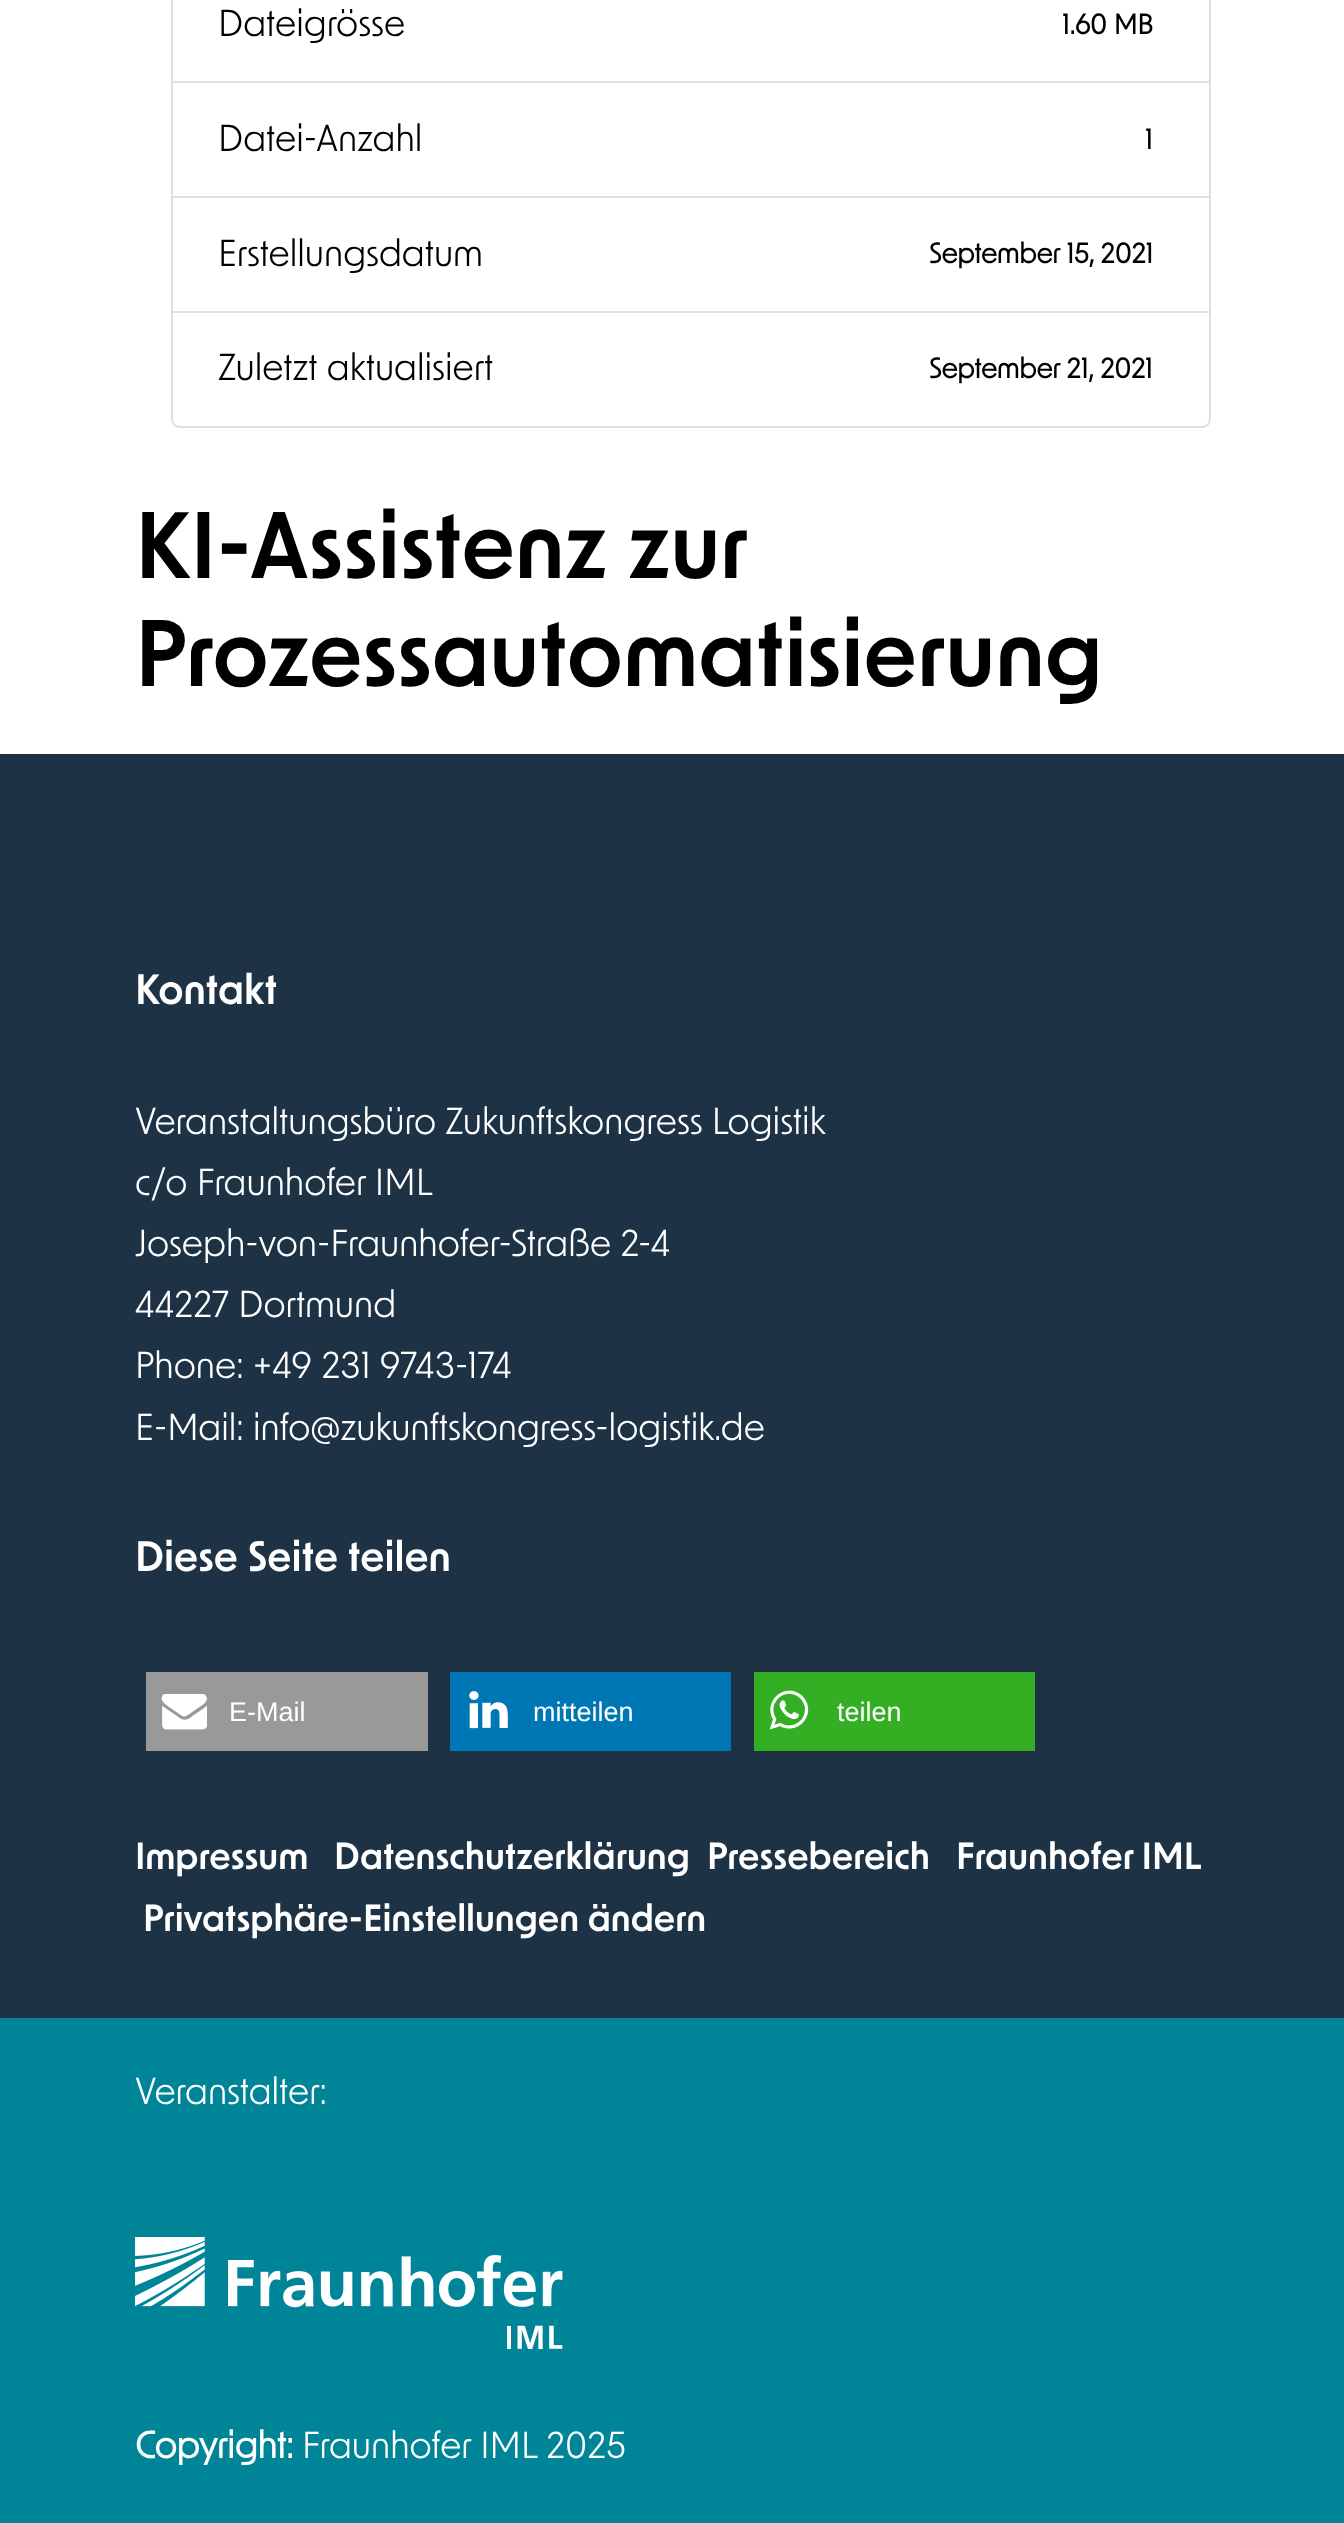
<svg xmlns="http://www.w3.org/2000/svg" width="1344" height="2523">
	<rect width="100%" height="100%" fill="#1D3245" />
	<rect x="0" y="0" width="1344" height="754" fill="#FFFFFF" />
	<rect x="172" y="-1" width="1038" height="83" fill="none" stroke="#DFDFDF" stroke-width="2" />
	<text x="218" y="36" font-family="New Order" font-size="36" fill="#000000">Dateigrösse</text>
	<text x="1062" y="34" font-family="New Order" font-size="27" font-weight="700" fill="#000000">1.60 MB</text>
	<rect x="172" y="82" width="1038" height="115" fill="none" stroke="#DFDFDF" stroke-width="2" />
	<text x="218" y="151" font-family="New Order" font-size="36" fill="#000000">Datei-Anzahl</text>
	<text x="1145" y="149" font-family="New Order" font-size="27" font-weight="700" fill="#000000">1</text>
	<rect x="172" y="197" width="1038" height="115" fill="none" stroke="#DFDFDF" stroke-width="2" />
	<text x="218" y="266" font-family="New Order" font-size="36" fill="#000000">Erstellungsdatum</text>
	<text x="929" y="263" font-family="New Order" font-size="27" font-weight="700" fill="#000000">September 15, 2021</text>
	<path d="M172 312H1210V419C1210 423.5 1206.5 427 1202 427H180C175.5 427 172 423.5 172 419Z" fill="#FFFFFF" stroke="#DFDFDF" stroke-width="2" />
	<text x="218" y="380" font-family="New Order" font-size="36" fill="#000000">Zuletzt aktualisiert</text>
	<text x="929" y="378" font-family="New Order" font-size="27" font-weight="700" fill="#000000">September 21, 2021</text>
	<g font-family="New Order" font-size="90" font-weight="600" fill="#000000">
		<text x="135" y="578" word-spacing="-1">KI-Assistenz zur</text>
		<text x="135" y="686">Prozessautomatisierung</text>
	</g>
	<text x="135" y="1004" font-family="New Order" font-size="40.5" font-weight="600" fill="#FFFFFF">Kontakt</text>
	<g font-family="New Order" font-size="36" fill="#FFFFFF">
		<text x="135" y="1134">Veranstaltungsbüro Zukunftskongress Logistik</text>
		<text x="135" y="1195">c/o Fraunhofer IML</text>
		<text x="135" y="1256">Joseph-von-Fraunhofer-Straße 2-4</text>
		<text x="135" y="1317">44227 Dortmund</text>
		<text x="135" y="1378">Phone: +49 231 9743-174</text>
		<text x="135" y="1440">E-Mail: info@zukunftskongress-logistik.de</text>
	</g>
	<text x="135" y="1571" font-family="New Order" font-size="40.5" font-weight="600" fill="#FFFFFF">Diese Seite teilen</text>
	<rect x="146" y="1672" width="282" height="79" fill="#999999" />
	<image x="161" y="1694" width="47" height="36" href="assets/img1.png" />
	<text x="229" y="1721" font-family="Liberation Sans" font-size="27" fill="#FFFFFF">E-Mail</text>
	<rect x="450" y="1672" width="281" height="79" fill="#0077B5" />
	<image x="469" y="1691" width="39" height="38" href="assets/img2.png" />
	<text x="533" y="1721" font-family="Liberation Sans" font-size="27" fill="#FFFFFF">mitteilen</text>
	<rect x="754" y="1672" width="281" height="79" fill="#34AF23" />
	<image x="769" y="1690" width="40" height="40" href="assets/img3.png" />
	<text x="837" y="1721" font-family="Liberation Sans" font-size="27" fill="#FFFFFF">teilen</text>
	<g font-family="New Order" font-size="36" font-weight="600" fill="#FFFFFF">
		<text x="135" y="1869">Impressum</text>
		<text x="334" y="1869">Datenschutzerklärung</text>
		<text x="707" y="1869">Pressebereich</text>
		<text x="956" y="1869" word-spacing="-1">Fraunhofer IML</text>
		<text x="143" y="1931">Privatsphäre-Einstellungen ändern</text>
	</g>
	<rect x="0" y="2018" width="1344" height="505" fill="#008598" />
	<text x="135" y="2104" font-family="New Order" font-size="36" fill="#FFFFFF">Veranstalter:</text>
	<image x="135" y="2237" width="428" height="112" href="assets/img4.png" />
	<text x="135" y="2458" font-family="New Order" font-size="36" font-weight="700" fill="#FFFFFF">Copyright:</text>
	<text x="302" y="2458" font-family="New Order" font-size="36" fill="#FFFFFF">Fraunhofer IML 2025</text>
</svg>
